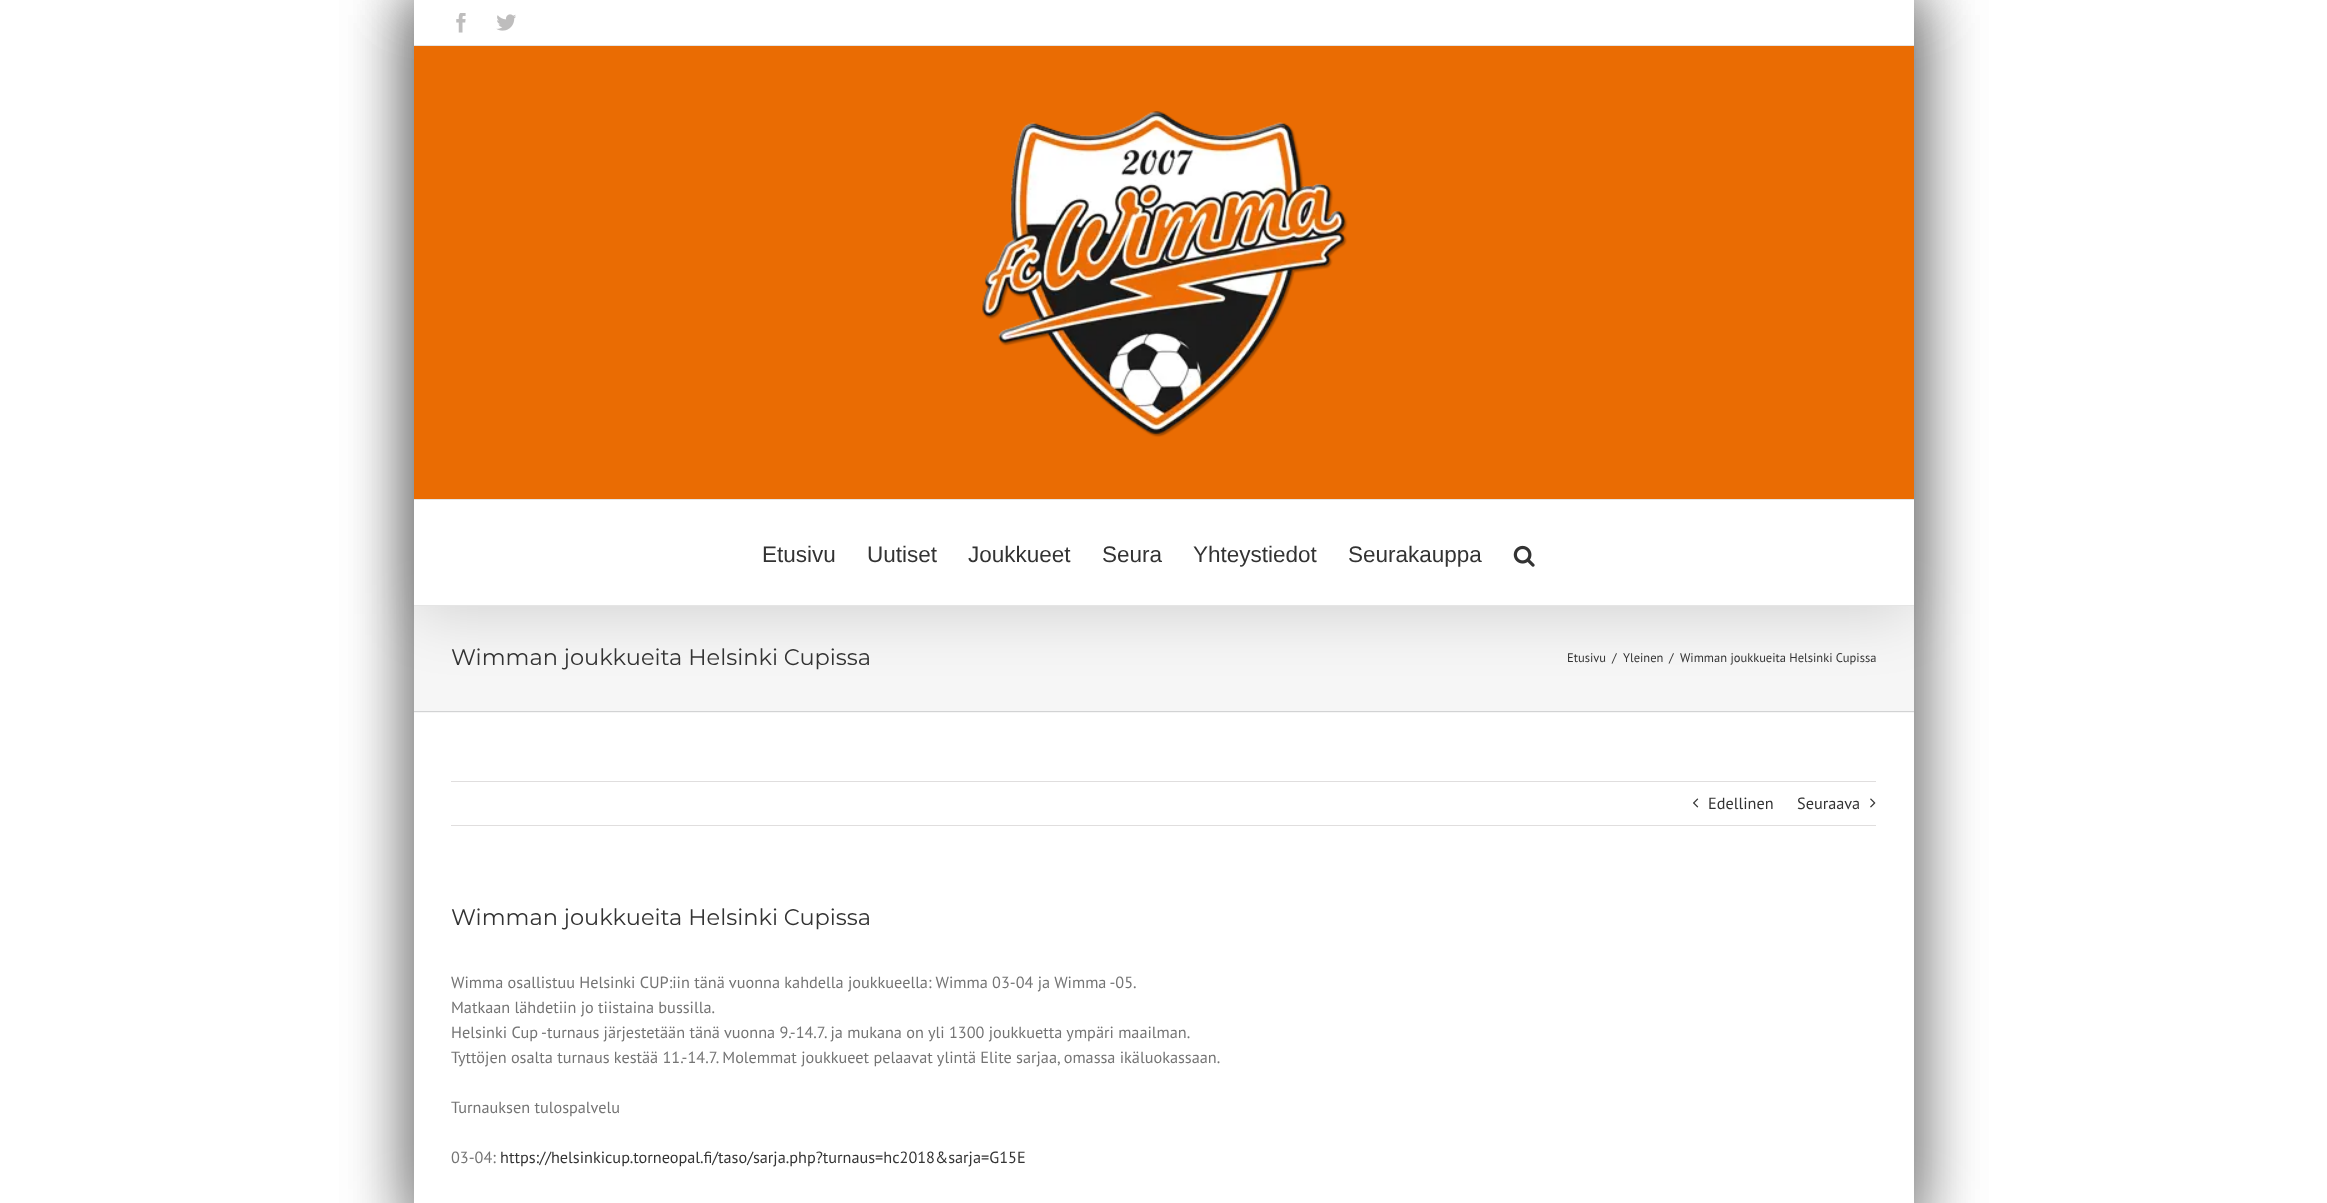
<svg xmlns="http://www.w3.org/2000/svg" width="2327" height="1203">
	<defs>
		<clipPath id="clip1"><path d="M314 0H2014V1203H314ZM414 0H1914V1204H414Z" clip-rule="evenodd" /></clipPath>
	</defs>
	<rect width="100%" height="100%" fill="#FFFFFF" />
	<rect x="408" y="-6" width="1512" height="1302" fill="#000000" fill-opacity="0.35" filter="blur(31px)" />
	<rect x="414" y="606" width="1500" height="107" fill="#F6F6F6" />
	<rect x="416" y="15" width="1495" height="599" fill="#000000" fill-opacity="0.14" filter="blur(31px)" />
	<rect x="414" y="0" width="1500" height="45" fill="#FFFFFF" />
	<rect x="414" y="45" width="1500" height="1" fill="#E5E5E5" />
	<image x="456" y="13" width="10" height="20" href="assets/img1.png" />
	<image x="496" y="14" width="20" height="17" href="assets/img2.png" />
	<rect x="414" y="46" width="1500" height="453" fill="#EA6C03" />
	<rect x="414" y="499" width="1500" height="1" fill="#E5E5E5" />
	<image x="982" y="111" width="366" height="326" href="assets/img3.png" />
	<rect x="414" y="500" width="1500" height="105" fill="#FFFFFF" />
	<rect x="414" y="605" width="1500" height="1" fill="#E5E5E5" />
	<image x="1513" y="545" width="22" height="22" href="assets/img4.png" />
	<rect x="414" y="711" width="1500" height="1" fill="#D2D3D4" />
	<rect x="414" y="713" width="1500" height="490" fill="#FFFFFF" />
	<rect x="451" y="781" width="1425" height="1" fill="#E0DEDE" />
	<rect x="451" y="825" width="1425" height="1" fill="#E0DEDE" />
	<image x="1693" y="798" width="6" height="10" href="assets/img5.png" />
	<image x="1870" y="798" width="6" height="10" href="assets/img6.png" />
	<g clip-path="url(#clip1)">
		<rect x="408" y="-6" width="1512" height="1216" fill="#000000" fill-opacity="0.35" filter="blur(31px)" />
	</g>
	<g font-family="Liberation Sans" font-size="22.5" fill="#333333">
		<text x="762" y="562">Etusivu</text>
		<text x="867" y="562">Uutiset</text>
		<text x="968" y="562">Joukkueet</text>
		<text x="1102" y="562">Seura</text>
		<text x="1193" y="562">Yhteystiedot</text>
		<text x="1348" y="562">Seurakauppa</text>
	</g>
	<text x="451" y="665" font-family="Montserrat" font-size="22.5" fill="#333333">Wimman joukkueita Helsinki Cupissa</text>
	<g font-family="PT Sans" font-size="12.5" fill="#333333">
		<text x="1567" y="662">Etusivu</text>
		<text x="1612" y="662">/</text>
		<text x="1623" y="662">Yleinen</text>
		<text x="1669" y="662">/</text>
		<text x="1680" y="662">Wimman joukkueita Helsinki Cupissa</text>
	</g>
	<g font-family="PT Sans" font-size="16.25" fill="#333333">
		<text x="1708" y="809">Edellinen</text>
		<text x="1797" y="809">Seuraava</text>
	</g>
	<text x="451" y="925" font-family="Montserrat" font-size="22.5" fill="#333333">Wimman joukkueita Helsinki Cupissa</text>
	<g font-family="PT Sans" font-size="16.25" fill="#747474">
		<text x="451" y="988">Wimma osallistuu Helsinki CUP:iin tänä vuonna kahdella joukkueella: Wimma 03-04 ja Wimma -05.</text>
		<text x="451" y="1013">Matkaan lähdetiin jo tiistaina bussilla.</text>
		<text x="451" y="1038">Helsinki Cup -turnaus järjestetään tänä vuonna 9.-14.7. ja mukana on yli 1300 joukkuetta ympäri maailman.</text>
		<text x="451" y="1063">Tyttöjen osalta turnaus kestää 11.-14.7. Molemmat joukkueet pelaavat ylintä Elite sarjaa, omassa ikäluokassaan.</text>
		<text x="451" y="1113">Turnauksen tulospalvelu</text>
		<text x="451" y="1163">03-04:</text>
	</g>
	<text x="500" y="1163" font-family="PT Sans" font-size="16.25" fill="#333333">https://helsinkicup.torneopal.fi/taso/sarja.php?turnaus=hc2018&amp;sarja=G15E</text>
</svg>
